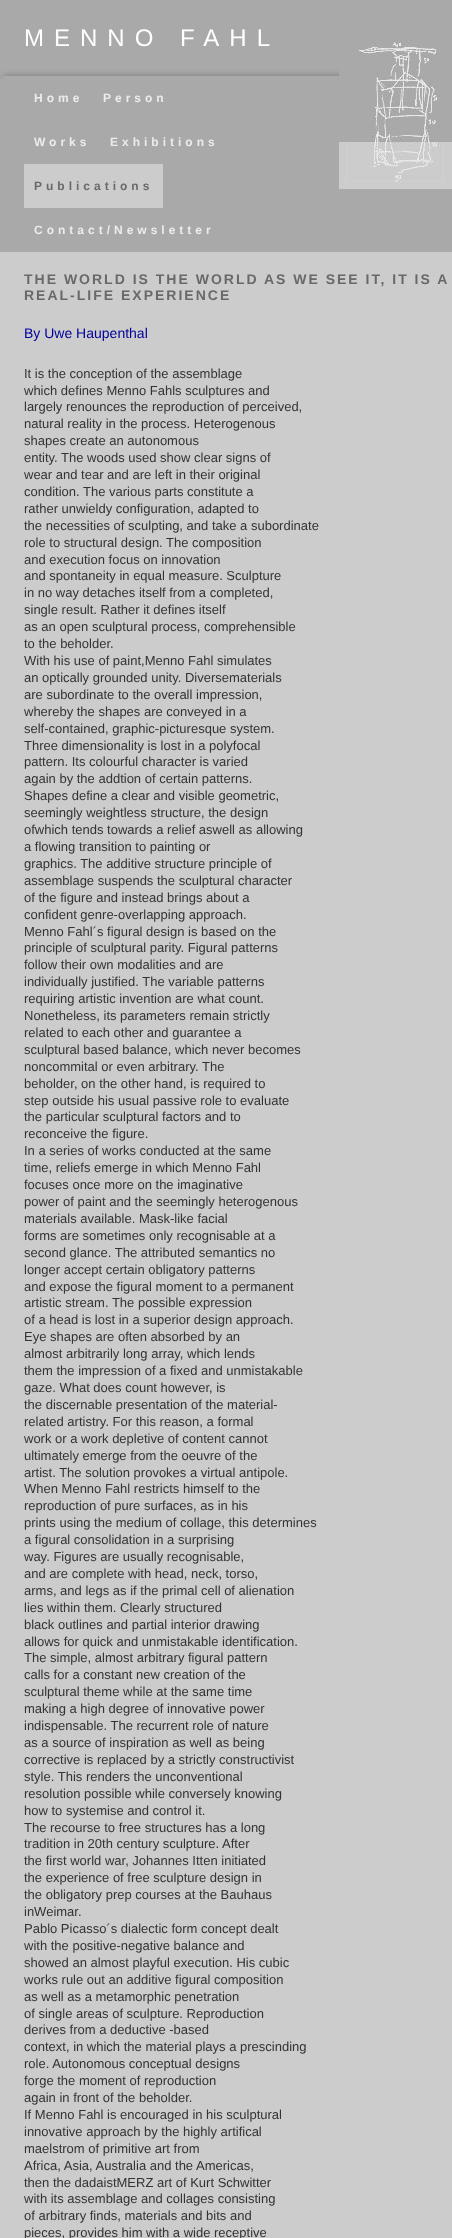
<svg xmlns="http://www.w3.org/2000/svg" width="452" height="2238">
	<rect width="100%" height="100%" fill="#A9A9A9" />
	<text x="24" y="46" font-family="Liberation Sans" font-size="24" letter-spacing="10" fill="#FFFFFF">MENNO FAHL</text>
	<rect x="2" y="74" width="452" height="176" rx="6" fill="#4A4848" fill-opacity="0.3" filter="blur(2.5px)" />
	<path d="M6 76H446C449.5 76 452 78.5 452 82V252H0V82C0 78.5 2.5 76 6 76Z" fill="#A9A9A9" />
	<g font-family="Liberation Sans" font-size="12" font-weight="700" letter-spacing="4" fill="#ECECEC">
		<text x="34" y="102">Home</text>
		<text x="103" y="102">Person</text>
		<text x="34" y="146">Works</text>
		<text x="110" y="146">Exhibitions</text>
	</g>
	<rect x="24" y="164" width="139" height="44" fill="#CCCCCC" />
	<text x="34" y="190" font-family="Liberation Sans" font-size="12" font-weight="700" letter-spacing="4" fill="#696969">Publications</text>
	<text x="34" y="234" font-family="Liberation Sans" font-size="12" font-weight="700" letter-spacing="4" fill="#ECECEC">Contact/Newsletter</text>
	<image x="339" y="40" width="113" height="149" href="assets/img1.png" />
	<rect x="0" y="252" width="452" height="1986" fill="#CCCCCC" />
	<g font-family="Liberation Sans" font-size="14" font-weight="700" letter-spacing="2" fill="#696969">
		<text x="24" y="284">THE WORLD IS THE WORLD AS WE SEE IT, IT IS A</text>
		<text x="24" y="300">REAL-LIFE EXPERIENCE</text>
	</g>
	<text x="24" y="338" font-family="Liberation Sans" font-size="14" fill="#000099">By Uwe Haupenthal</text>
	<g font-family="Liberation Sans" font-size="13" fill="#333333">
		<text x="24" y="378">It is the conception of the assemblage</text>
		<text x="24" y="395">which defines Menno Fahls sculptures and</text>
		<text x="24" y="411">largely renounces the reproduction of perceived,</text>
		<text x="24" y="428">natural reality in the process. Heterogenous</text>
		<text x="24" y="445">shapes create an autonomous</text>
		<text x="24" y="462">entity. The woods used show clear signs of</text>
		<text x="24" y="479">wear and tear and are left in their original</text>
		<text x="24" y="496">condition. The various parts constitute a</text>
		<text x="24" y="513">rather unwieldy configuration, adapted to</text>
		<text x="24" y="530">the necessities of sculpting, and take a subordinate</text>
		<text x="24" y="547">role to structural design. The composition</text>
		<text x="24" y="564">and execution focus on innovation</text>
		<text x="24" y="580">and spontaneity in equal measure. Sculpture</text>
		<text x="24" y="597">in no way detaches itself from a completed,</text>
		<text x="24" y="614">single result. Rather it defines itself</text>
		<text x="24" y="631">as an open sculptural process, comprehensible</text>
		<text x="24" y="648">to the beholder.</text>
		<text x="24" y="665">With his use of paint,Menno Fahl simulates</text>
		<text x="24" y="682">an optically grounded unity. Diversematerials</text>
		<text x="24" y="699">are subordinate to the overall impression,</text>
		<text x="24" y="716">whereby the shapes are conveyed in a</text>
		<text x="24" y="733">self-contained, graphic-picturesque system.</text>
		<text x="24" y="750">Three dimensionality is lost in a polyfocal</text>
		<text x="24" y="766">pattern. Its colourful character is varied</text>
		<text x="24" y="783">again by the addtion of certain patterns.</text>
		<text x="24" y="800">Shapes define a clear and visible geometric,</text>
		<text x="24" y="817">seemingly weightless structure, the design</text>
		<text x="24" y="834">ofwhich tends towards a relief aswell as allowing</text>
		<text x="24" y="851">a flowing transition to painting or</text>
		<text x="24" y="868">graphics. The additive structure principle of</text>
		<text x="24" y="885">assemblage suspends the sculptural character</text>
		<text x="24" y="902">of the figure and instead brings about a</text>
		<text x="24" y="919">confident genre-overlapping approach.</text>
		<text x="24" y="936">Menno Fahl´s figural design is based on the</text>
		<text x="24" y="952">principle of sculptural parity. Figural patterns</text>
		<text x="24" y="969">follow their own modalities and are</text>
		<text x="24" y="986">individually justified. The variable patterns</text>
		<text x="24" y="1003">requiring artistic invention are what count.</text>
		<text x="24" y="1020">Nonetheless, its parameters remain strictly</text>
		<text x="24" y="1037">related to each other and guarantee a</text>
		<text x="24" y="1054">sculptural based balance, which never becomes</text>
		<text x="24" y="1071">noncommital or even arbitrary. The</text>
		<text x="24" y="1088">beholder, on the other hand, is required to</text>
		<text x="24" y="1105">step outside his usual passive role to evaluate</text>
		<text x="24" y="1121">the particular sculptural factors and to</text>
		<text x="24" y="1138">reconceive the figure.</text>
		<text x="24" y="1155">In a series of works conducted at the same</text>
		<text x="24" y="1172">time, reliefs emerge in which Menno Fahl</text>
		<text x="24" y="1189">focuses once more on the imaginative</text>
		<text x="24" y="1206">power of paint and the seemingly heterogenous</text>
		<text x="24" y="1223">materials available. Mask-like facial</text>
		<text x="24" y="1240">forms are sometimes only recognisable at a</text>
		<text x="24" y="1257">second glance. The attributed semantics no</text>
		<text x="24" y="1274">longer accept certain obligatory patterns</text>
		<text x="24" y="1291">and expose the figural moment to a permanent</text>
		<text x="24" y="1307">artistic stream. The possible expression</text>
		<text x="24" y="1324">of a head is lost in a superior design approach.</text>
		<text x="24" y="1341">Eye shapes are often absorbed by an</text>
		<text x="24" y="1358">almost arbitrarily long array, which lends</text>
		<text x="24" y="1375">them the impression of a fixed and unmistakable</text>
		<text x="24" y="1392">gaze. What does count however, is</text>
		<text x="24" y="1409">the discernable presentation of the material-</text>
		<text x="24" y="1426">related artistry. For this reason, a formal</text>
		<text x="24" y="1443">work or a work depletive of content cannot</text>
		<text x="24" y="1460">ultimately emerge from the oeuvre of the</text>
		<text x="24" y="1477">artist. The solution provokes a virtual antipole.</text>
		<text x="24" y="1493">When Menno Fahl restricts himself to the</text>
		<text x="24" y="1510">reproduction of pure surfaces, as in his</text>
		<text x="24" y="1527">prints using the medium of collage, this determines</text>
		<text x="24" y="1544">a figural consolidation in a surprising</text>
		<text x="24" y="1561">way. Figures are usually recognisable,</text>
		<text x="24" y="1578">and are complete with head, neck, torso,</text>
		<text x="24" y="1595">arms, and legs as if the primal cell of alienation</text>
		<text x="24" y="1612">lies within them. Clearly structured</text>
		<text x="24" y="1629">black outlines and partial interior drawing</text>
		<text x="24" y="1646">allows for quick and unmistakable identification.</text>
		<text x="24" y="1662">The simple, almost arbitrary figural pattern</text>
		<text x="24" y="1679">calls for a constant new creation of the</text>
		<text x="24" y="1696">sculptural theme while at the same time</text>
		<text x="24" y="1713">making a high degree of innovative power</text>
		<text x="24" y="1730">indispensable. The recurrent role of nature</text>
		<text x="24" y="1747">as a source of inspiration as well as being</text>
		<text x="24" y="1764">corrective is replaced by a strictly constructivist</text>
		<text x="24" y="1781">style. This renders the unconventional</text>
		<text x="24" y="1798">resolution possible while conversely knowing</text>
		<text x="24" y="1815">how to systemise and control it.</text>
		<text x="24" y="1832">The recourse to free structures has a long</text>
		<text x="24" y="1848">tradition in 20th century sculpture. After</text>
		<text x="24" y="1865">the first world war, Johannes Itten initiated</text>
		<text x="24" y="1882">the experience of free sculpture design in</text>
		<text x="24" y="1899">the obligatory prep courses at the Bauhaus</text>
		<text x="24" y="1916">inWeimar.</text>
		<text x="24" y="1933">Pablo Picasso´s dialectic form concept dealt</text>
		<text x="24" y="1950">with the positive-negative balance and</text>
		<text x="24" y="1967">showed an almost playful execution. His cubic</text>
		<text x="24" y="1984">works rule out an additive figural composition</text>
		<text x="24" y="2001">as well as a metamorphic penetration</text>
		<text x="24" y="2018">of single areas of sculpture. Reproduction</text>
		<text x="24" y="2034">derives from a deductive -based</text>
		<text x="24" y="2051">context, in which the material plays a prescinding</text>
		<text x="24" y="2068">role. Autonomous conceptual designs</text>
		<text x="24" y="2085">forge the moment of reproduction</text>
		<text x="24" y="2102">again in front of the beholder.</text>
		<text x="24" y="2119">If Menno Fahl is encouraged in his sculptural</text>
		<text x="24" y="2136">innovative approach by the highly artifical</text>
		<text x="24" y="2153">maelstrom of primitive art from</text>
		<text x="24" y="2170">Africa, Asia, Australia and the Americas,</text>
		<text x="24" y="2187">then the dadaistMERZ art of Kurt Schwitter</text>
		<text x="24" y="2203">with its assemblage and collages consisting</text>
		<text x="24" y="2220">of arbitrary finds, materials and bits and</text>
		<text x="24" y="2237">pieces, provides him with a wide receptive</text>
	</g>
</svg>
